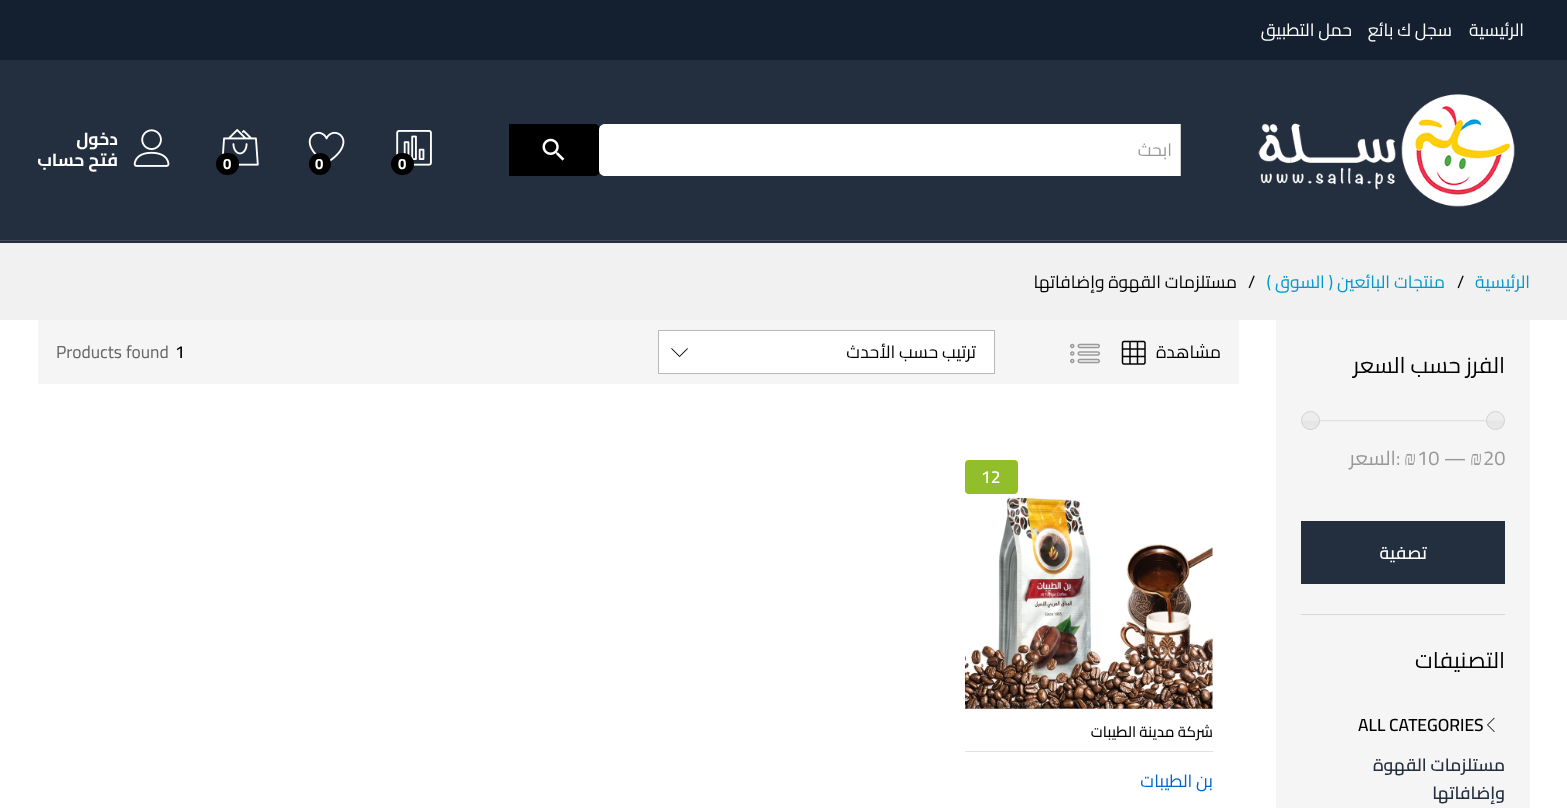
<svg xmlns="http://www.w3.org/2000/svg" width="1567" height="808">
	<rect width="100%" height="100%" fill="#FFFFFF" />
	<rect x="0" y="0" width="1567" height="60" fill="#14202F" />
	<g font-family="Cairo" font-size="17.5" direction="rtl" fill="#FFFFFF">
		<text x="1524" y="36">الرئيسية</text>
		<text x="1452" y="36">سجل ك بائع</text>
		<text x="1352" y="36">حمل التطبيق</text>
	</g>
	<rect x="0" y="60" width="1567" height="183" fill="#232F3E" />
	<image x="1258" y="94" width="257" height="113" href="assets/img1.png" />
	<path d="M509 124H594C597.5 124 600 126.5 600 130V170C600 173.5 597.5 176 594 176H509Z" fill="#000000" />
	<path d="M605 124H1181V176H605C601.5 176 599 173.5 599 170V130C599 126.5 601.5 124 605 124Z" fill="#FFFFFF" />
	<rect x="1180" y="124" width="1" height="52" fill="#CCCCCC" />
	<text x="1172" y="156" font-family="Cairo" font-size="17.5" direction="rtl" fill="#999999">ابحث</text>
	<image x="542" y="138" width="23" height="23" href="assets/img2.png" />
	<image x="396" y="130" width="36" height="36" href="assets/img3.png" />
	<rect x="391" y="153" width="23" height="22" rx="11" fill="#000000" />
	<text x="398" y="169" font-family="Cairo" font-size="15" font-weight="700" fill="#FFFFFF">0</text>
	<image x="308" y="131" width="37" height="31" href="assets/img4.png" />
	<circle cx="320" cy="164" r="11" fill="#000000" />
	<text x="315" y="169" font-family="Cairo" font-size="15" font-weight="700" fill="#FFFFFF">0</text>
	<image x="221" y="129" width="38" height="37" href="assets/img5.png" />
	<rect x="216" y="153" width="23" height="22" rx="11" fill="#000000" />
	<text x="223" y="169" font-family="Cairo" font-size="15" font-weight="700" fill="#FFFFFF">0</text>
	<image x="133" y="129" width="37" height="38" href="assets/img6.png" />
	<g font-family="Cairo" font-size="17.5" font-weight="700" direction="rtl" fill="#FFFFFF">
		<text x="118" y="145">دخول</text>
		<text x="118" y="166">فتح حساب</text>
	</g>
	<rect x="0" y="240" width="1567" height="1" fill="#444E5B" />
	<rect x="0" y="243" width="1567" height="77" fill="#F1F1F1" />
	<text x="1530" y="288" font-family="Cairo" font-size="17.5" direction="rtl" fill="#0099CC">الرئيسية</text>
	<text x="1457" y="288" font-family="Cairo" font-size="17.5" fill="#000000">/</text>
	<text x="1445" y="288" font-family="Cairo" font-size="17.5" direction="rtl" fill="#0099CC">منتجات البائعين ( السوق )</text>
	<text x="1248" y="288" font-family="Cairo" font-size="17.5" fill="#000000">/</text>
	<text x="1237" y="288" font-family="Cairo" font-size="17.5" direction="rtl" fill="#000000">مستلزمات القهوة وإضافاتها</text>
	<rect x="1276" y="320" width="254" height="488" fill="#F5F5F5" />
	<text x="1505" y="373" font-family="Cairo" font-size="22.5" direction="rtl" fill="#000000">الفرز حسب السعر</text>
	<image x="1301" y="420" width="1" height="1" href="assets/img7.png" />
	<image x="1301" y="420" width="186" height="2" href="assets/img10.png" />
	<image x="1486" y="411" width="19" height="19" href="assets/img8.png" />
	<circle cx="1495.5" cy="420.5" r="9" fill="none" stroke="#D3D3D3" />
	<image x="1301" y="411" width="19" height="19" href="assets/img9.png" />
	<circle cx="1310.5" cy="420.5" r="9" fill="none" stroke="#D3D3D3" />
	<text x="1483" y="465" font-family="Cairo" font-size="20" fill="#999999">20</text>
	<text x="1470" y="465" font-family="Liberation Serif" font-size="20" fill="#999999">₪</text>
	<text x="1417" y="465" font-family="Cairo" font-size="20" fill="#999999">10 —</text>
	<text x="1404" y="465" font-family="Liberation Serif" font-size="20" fill="#999999">₪</text>
	<text x="1396" y="465" font-family="Cairo" font-size="20" fill="#999999">:</text>
	<text x="1396" y="465" font-family="Cairo" font-size="20" direction="rtl" fill="#999999">السعر</text>
	<rect x="1301" y="521" width="204" height="63" fill="#232F3E" />
	<text x="1427" y="559" font-family="Cairo" font-size="17.5" font-weight="600" direction="rtl" fill="#FFFFFF">تصفية</text>
	<rect x="1301" y="614" width="204" height="1" fill="#D8D8D8" />
	<text x="1505" y="668" font-family="Cairo" font-size="22.5" direction="rtl" fill="#000000">التصنيفات</text>
	<image x="1487" y="717" width="8" height="15" href="assets/img11.png" />
	<text x="1358" y="731" font-family="Cairo" font-size="17.5" font-weight="600" fill="#000000">ALL CATEGORIES</text>
	<g font-family="Cairo" font-size="17.5" font-weight="600" direction="rtl" fill="#232F3E">
		<text x="1505" y="771">مستلزمات القهوة</text>
		<text x="1505" y="799">وإضافاتها</text>
	</g>
	<rect x="38" y="320" width="1201" height="64" fill="#F5F5F5" />
	<text x="1221" y="358" font-family="Cairo" font-size="17.5" direction="rtl" fill="#000000">مشاهدة</text>
	<image x="1121" y="340" width="25" height="25" href="assets/img12.png" />
	<image x="1070" y="343" width="30" height="21" href="assets/img13.png" />
	<rect x="658.5" y="330.5" width="336" height="43" fill="#FFFFFF" stroke="#B8B8B8" />
	<text x="976" y="358" font-family="Cairo" font-size="17.5" direction="rtl" fill="#000000">ترتيب حسب الأحدث</text>
	<image x="671" y="348" width="17" height="9" href="assets/img14.png" />
	<text x="175" y="358" font-family="Cairo" font-size="17.5" font-weight="600" fill="#000000">1</text>
	<text x="56" y="358" font-family="Cairo" font-size="17.5" fill="#666666">Products found</text>
	<rect x="965" y="460" width="53" height="34" rx="4" fill="#93BE2B" />
	<text x="981" y="483" font-family="Cairo" font-size="17.5" font-weight="600" fill="#FFFFFF">12</text>
	<image x="965" y="496" width="248" height="213" href="assets/img15.png" />
	<rect x="965" y="751" width="248" height="1" fill="#E1E1E1" />
	<text x="1213" y="737" font-family="Cairo" font-size="15" font-weight="500" direction="rtl" fill="#000000">شركة مدينة الطيبات</text>
	<text x="1213" y="787" font-family="Cairo" font-size="17.5" direction="rtl" fill="#0066CC">بن الطيبات</text>
</svg>
